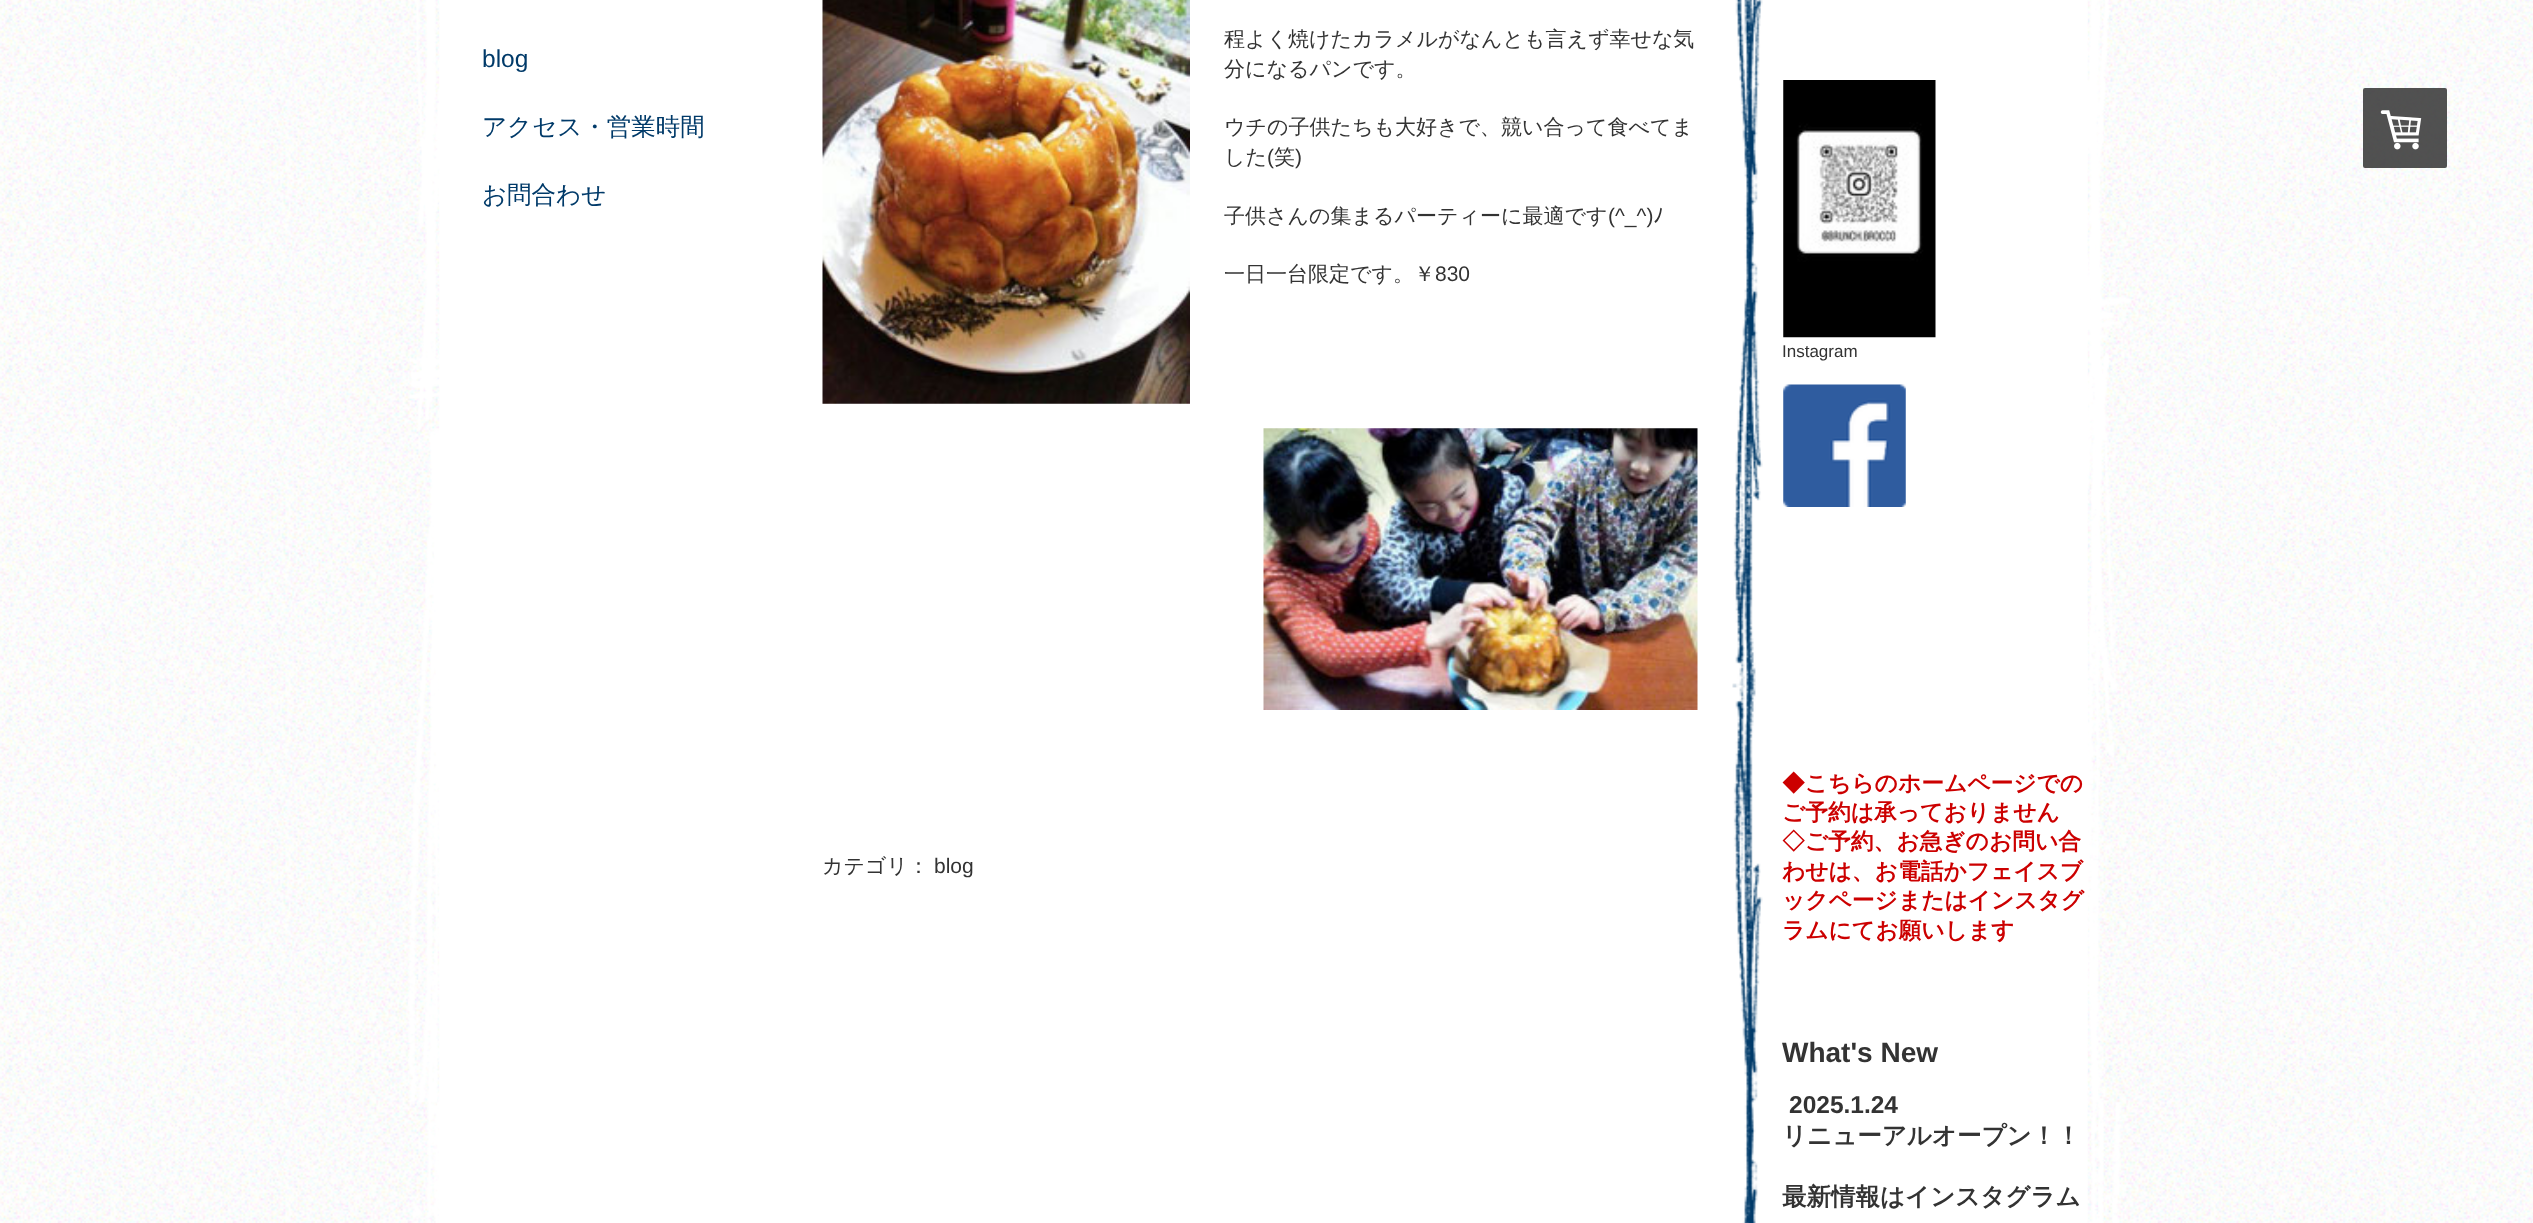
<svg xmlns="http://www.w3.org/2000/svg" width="2533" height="1223">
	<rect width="100%" height="100%" fill="#FFFFFF" />
	<image x="0" y="0" width="2533" height="1223" href="assets/img1.png" />
	<image x="408" y="0" width="1723" height="1223" href="assets/img2.png" />
	<text x="482" y="67" font-family="Liberation Sans" font-size="24.5" fill="#003A69">blog</text>
	<g font-family="WenQuanYi Zen Hei" font-size="24.5" font-weight="500" fill="#003A69">
		<text x="482" y="135">アクセス・営業時間</text>
		<text x="482" y="203">お問合わせ</text>
	</g>
	<image x="822" y="0" width="368" height="404" href="assets/img3.png" />
	<g font-family="WenQuanYi Zen Hei" font-size="21" font-weight="500" fill="#333333">
		<text x="1224" y="46">程よく焼けたカラメルがなんとも言えず幸せな気</text>
		<text x="1224" y="76">分になるパンです。</text>
		<text x="1224" y="134">ウチの子供たちも大好きで、競い合って食べてま</text>
		<text x="1224" y="164">した</text>
	</g>
	<text x="1267" y="164" font-family="Liberation Sans" font-size="21" fill="#333333">(</text>
	<text x="1274" y="164" font-family="WenQuanYi Zen Hei" font-size="21" font-weight="500" fill="#333333">笑</text>
	<text x="1295" y="164" font-family="Liberation Sans" font-size="21" fill="#333333">)</text>
	<text x="1224" y="223" font-family="WenQuanYi Zen Hei" font-size="21" font-weight="500" fill="#333333">子供さんの集まるパーティーに最適です</text>
	<text x="1608" y="223" font-family="Liberation Sans" font-size="21" fill="#333333">(^_^)</text>
	<text x="1653" y="223" font-family="IPAPGothic" font-size="21" fill="#333333">ﾉ</text>
	<text x="1224" y="281" font-family="WenQuanYi Zen Hei" font-size="21" font-weight="500" fill="#333333">一日一台限定です。￥</text>
	<text x="1435" y="281" font-family="Liberation Sans" font-size="21" fill="#333333">830</text>
	<image x="1263" y="428" width="435" height="282" href="assets/img4.png" />
	<text x="822" y="873" font-family="WenQuanYi Zen Hei" font-size="21" font-weight="500" fill="#333333">カテゴリ：</text>
	<text x="934" y="873" font-family="Liberation Sans" font-size="21" fill="#333333">blog</text>
	<image x="1732" y="0" width="31" height="1223" href="assets/img5.png" />
	<rect x="2363" y="88" width="84" height="80" rx="2" fill="#333333" fill-opacity="0.85" />
	<image x="2380" y="110" width="42" height="40" href="assets/img6.png" />
	<image x="1783" y="80" width="153" height="258" href="assets/img7.png" />
	<text x="1782" y="357" font-family="Liberation Sans" font-size="17" fill="#333333">Instagram</text>
	<image x="1783" y="384" width="123" height="123" href="assets/img8.png" />
	<g font-family="WenQuanYi Zen Hei" font-size="22.75" font-weight="700" fill="#CC0000">
		<text x="1782" y="791">◆こちらのホームページでの</text>
		<text x="1782" y="820">ご予約は承っておりません</text>
		<text x="1782" y="849">◇ご予約、お急ぎのお問い合</text>
		<text x="1782" y="879">わせは、お電話かフェイスブ</text>
		<text x="1782" y="908">ックページまたはインスタグ</text>
		<text x="1782" y="938">ラムにてお願いします</text>
	</g>
	<text x="1782" y="1062" font-family="Liberation Sans" font-size="28" font-weight="700" fill="#333333">What's New</text>
	<text x="1789" y="1113" font-family="Liberation Sans" font-size="24.5" font-weight="700" fill="#333333">2025.1.24</text>
	<g font-family="WenQuanYi Zen Hei" font-size="24.5" font-weight="700" fill="#333333">
		<text x="1782" y="1144">リニューアルオープン！！</text>
		<text x="1782" y="1205">最新情報はインスタグラム</text>
	</g>
</svg>
